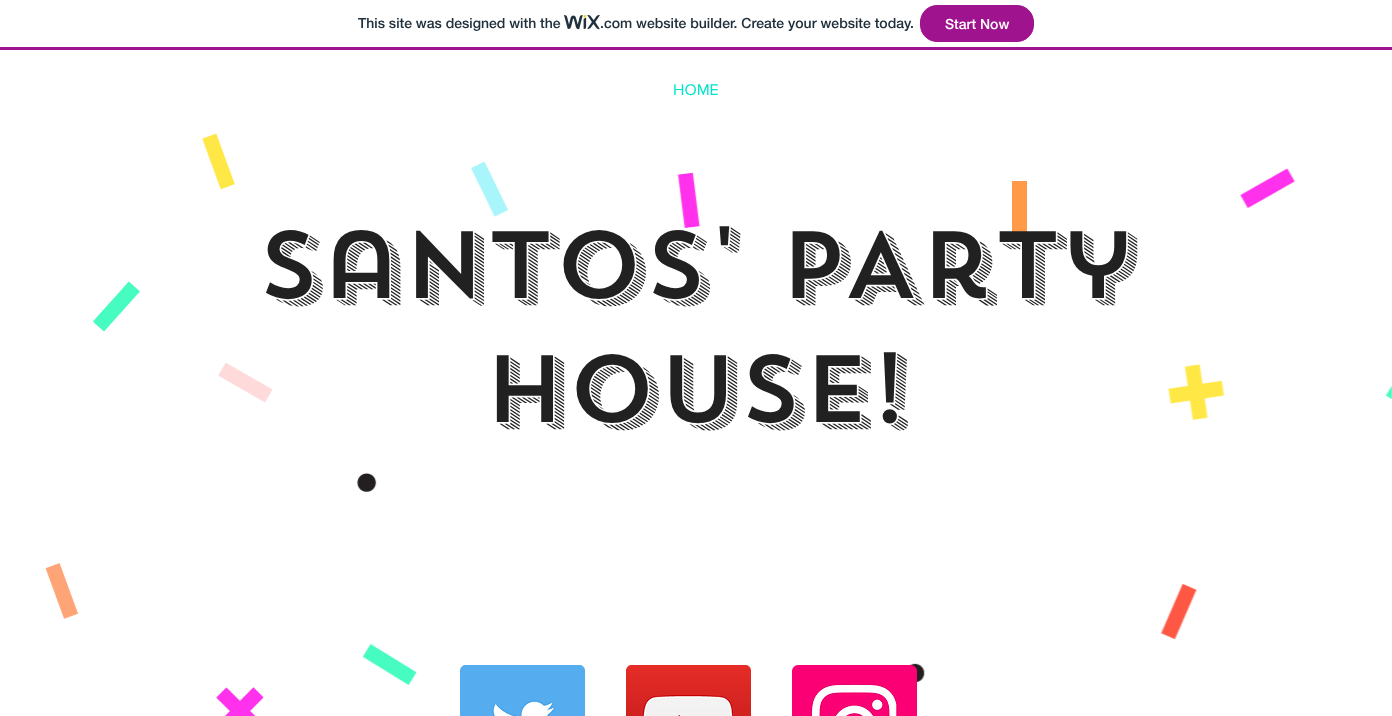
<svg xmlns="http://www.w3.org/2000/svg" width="1392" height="716">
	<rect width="100%" height="100%" fill="#FFFFFF" />
	<rect x="0" y="47" width="1392" height="3" fill="#A0138E" />
	<text x="358" y="28" font-family="'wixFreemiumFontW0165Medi'" font-size="14" font-weight="500" fill="#20303C">This site was designed with the</text>
	<image x="564" y="15" width="36" height="15" href="assets/img1.png" />
	<text x="600" y="28" font-family="'wixFreemiumFontW0165Medi'" font-size="14" font-weight="500" fill="#20303C">.com website builder. Create your website today.</text>
	<rect x="920.5" y="5.5" width="113" height="36" rx="16.5" fill="#A0138E" stroke="#A0138E" />
	<text x="945" y="29" font-family="'wixFreemiumFontW0165Medi'" font-size="14" font-weight="500" fill="#FFFFFF">Start Now</text>
	<text x="673" y="95" font-family="'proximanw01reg'" font-size="16" fill="#00E5C9">HOME</text>
	<image x="45" y="133" width="1347" height="552" href="assets/img6.png" />
	<rect x="1012" y="181" width="15" height="51" fill="#FF9B48" />
	<g font-family="'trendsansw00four'" font-size="95" font-weight="500" fill="#212121">
		<text x="257" y="298">Santos' PArty</text>
		<text x="483" y="422">HOUSE!</text>
	</g>
	<image x="216" y="687" width="48" height="29" href="assets/img2.png" />
	<image x="460" y="665" width="125" height="51" href="assets/img3.png" />
	<image x="626" y="665" width="125" height="51" href="assets/img4.png" />
	<image x="792" y="665" width="125" height="51" href="assets/img5.png" />
</svg>
